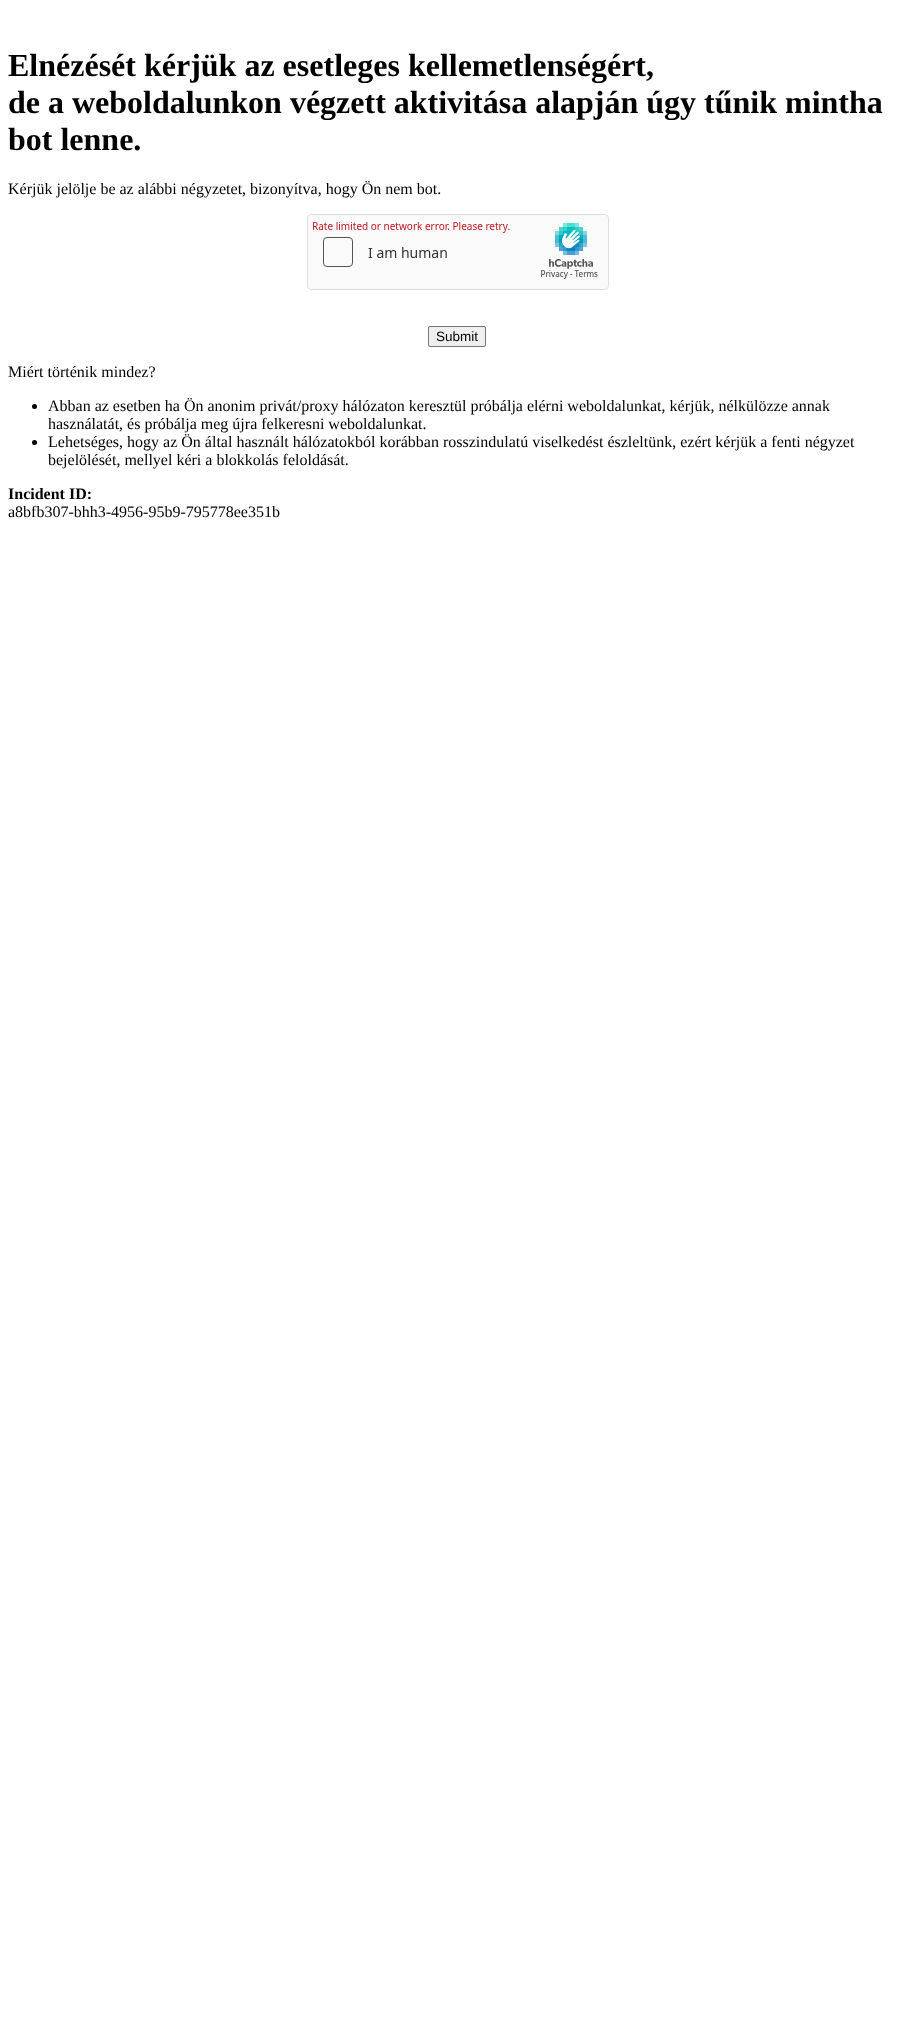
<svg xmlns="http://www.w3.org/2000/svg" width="914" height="2028">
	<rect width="100%" height="100%" fill="#FFFFFF" />
	<g font-family="Liberation Serif" font-size="32" font-weight="700" fill="#000000">
		<text x="8" y="76">Elnézését kérjük az esetleges kellemetlenségért,</text>
		<text x="8" y="113">de a weboldalunkon végzett aktivitása alapján úgy tűnik mintha</text>
		<text x="8" y="150">bot lenne.</text>
	</g>
	<text x="8" y="194" font-family="Liberation Serif" font-size="16" fill="#000000">Kérjük jelölje be az alábbi négyzetet, bizonyítva, hogy Ön nem bot.</text>
	<image x="307" y="214" width="302" height="76" href="assets/img1.png" />
	<rect x="428.5" y="326.5" width="57" height="20" rx="1.5" fill="#EFEFEF" stroke="#767676" />
	<text x="436" y="341" font-family="Liberation Sans" font-size="13.5" fill="#000000">Submit</text>
	<text x="8" y="377" font-family="Liberation Serif" font-size="16" fill="#000000">Miért történik mindez?</text>
	<circle cx="34.5" cy="406.5" r="2.5" fill="#000000" />
	<g font-family="Liberation Serif" font-size="16" fill="#000000">
		<text x="48" y="411">Abban az esetben ha Ön anonim privát/proxy hálózaton keresztül próbálja elérni weboldalunkat, kérjük, nélkülözze annak</text>
		<text x="48" y="429">használatát, és próbálja meg újra felkeresni weboldalunkat.</text>
	</g>
	<circle cx="34.5" cy="442.5" r="2.5" fill="#000000" />
	<g font-family="Liberation Serif" font-size="16" fill="#000000">
		<text x="48" y="447">Lehetséges, hogy az Ön által használt hálózatokból korábban rosszindulatú viselkedést észleltünk, ezért kérjük a fenti négyzet</text>
		<text x="48" y="465">bejelölését, mellyel kéri a blokkolás feloldását.</text>
	</g>
	<text x="8" y="499" font-family="Liberation Serif" font-size="16" font-weight="700" fill="#000000">Incident ID:</text>
	<text x="8" y="517" font-family="Liberation Serif" font-size="16" fill="#000000">a8bfb307-bhh3-4956-95b9-795778ee351b</text>
</svg>
